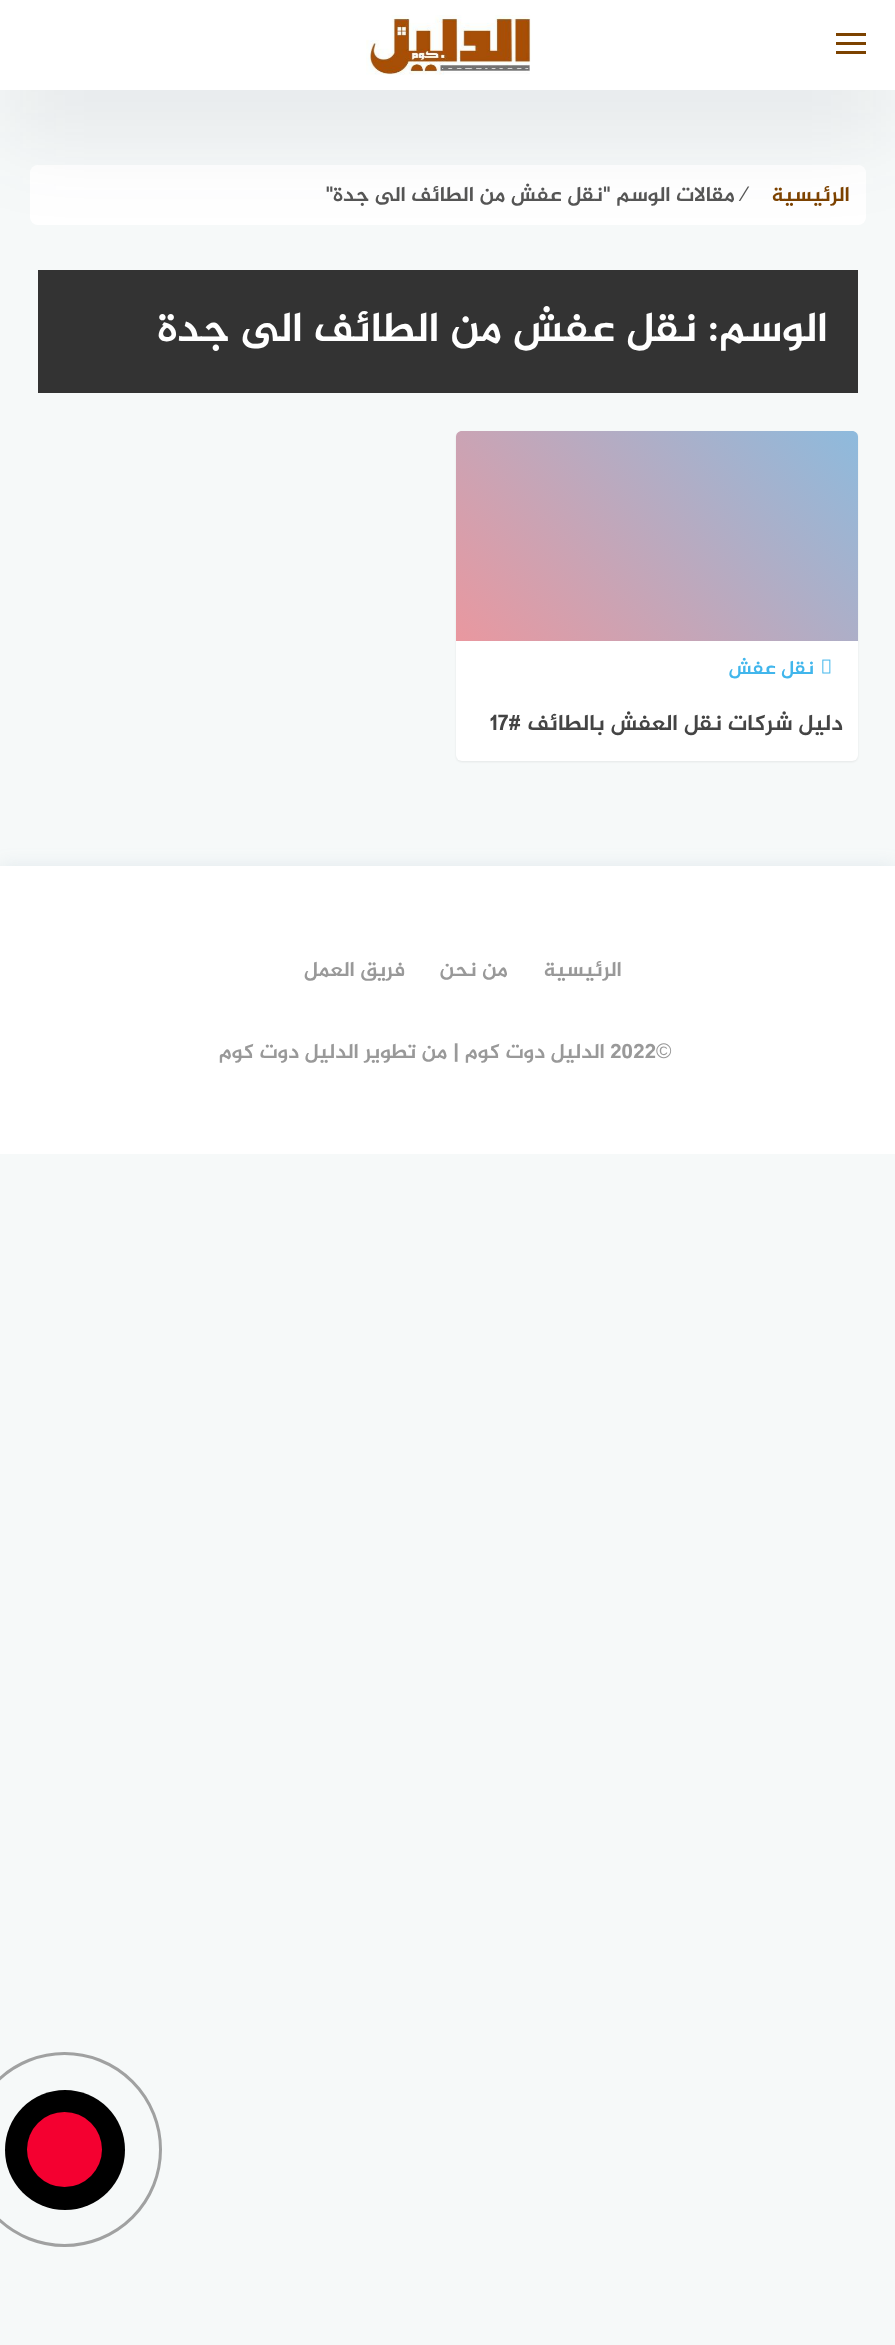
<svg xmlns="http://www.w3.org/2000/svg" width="895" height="2345">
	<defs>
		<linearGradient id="g1" gradientUnits="userSpaceOnUse" x1="504" y1="689" x2="810" y2="383"><stop offset="0" stop-color="#E5192C" stop-opacity="0.4" /><stop offset="1" stop-color="#0070C6" stop-opacity="0.4" /></linearGradient>
		<clipPath id="clip1"><rect x="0" y="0" width="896" height="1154" /></clipPath>
	</defs>
	<rect width="100%" height="100%" fill="#F6F9F9" />
	<rect x="30" y="165" width="836" height="60" rx="8" fill="#FFFFFF" />
	<rect x="0" y="44" width="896" height="90" fill="#363949" fill-opacity="0.09" filter="blur(45px)" />
	<rect x="0" y="0" width="895" height="90" fill="#FFFFFF" />
	<rect x="836" y="33" width="30" height="3" fill="#7C4200" />
	<rect x="836" y="42" width="30" height="3" fill="#7C4200" />
	<rect x="836" y="51" width="30" height="3" fill="#7C4200" />
	<image x="366" y="15" width="165" height="60" href="assets/img1.png" />
	<text x="850" y="201" font-family="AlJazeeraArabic" font-size="21" font-weight="700" direction="rtl" fill="#7C4200">الرئيسية</text>
	<text x="743" y="201" font-family="Liberation Sans" font-size="21" fill="#555555">⁄</text>
	<text x="735" y="201" font-family="AlJazeeraArabic" font-size="21" font-weight="700" direction="rtl" fill="#555555">مقالات الوسم "نقل عفش من الطائف الى جدة"</text>
	<rect x="38" y="270" width="820" height="123" fill="#333333" />
	<g font-family="AlJazeeraArabic" font-size="42" font-weight="700" direction="rtl" fill="#FFFFFF">
		<text x="828" y="341">الوسم:</text>
		<text x="697" y="341">نقل عفش من الطائف الى جدة</text>
	</g>
	<rect x="456" y="432" width="402" height="330" rx="6" fill="#000000" fill-opacity="0.07" filter="blur(1px)" />
	<rect x="456" y="431" width="402" height="330" rx="6" fill="#FFFFFF" />
	<path d="M462 431H852C855.5 431 858 433.5 858 437V641H456V437C456 433.5 458.5 431 462 431Z" fill="#ECECEC" />
	<path d="M462 431H852C855.5 431 858 433.5 858 437V641H456V437C456 433.5 458.5 431 462 431Z" fill="url(#g1)" />
	<image x="822" y="659" width="9" height="15" href="assets/img2.png" />
	<text x="814" y="674" font-family="AlJazeeraArabic" font-size="19.5" font-weight="700" direction="rtl" fill="#41B6EC">نقل عفش</text>
	<text x="843" y="730" font-family="AlJazeeraArabic" font-size="22.5" font-weight="700" direction="rtl" fill="#444444">دليل شركات نقل العفش بالطائف #</text>
	<text x="490" y="730" font-family="AlJazeeraArabic" font-size="22.5" font-weight="700" fill="#444444">17</text>
	<g clip-path="url(#clip1)">
		<rect x="0" y="866" width="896" height="288" fill="#6E8FAB" fill-opacity="0.15" filter="blur(9px)" />
	</g>
	<rect x="0" y="866" width="895" height="288" fill="#FFFFFF" />
	<g font-family="AlJazeeraArabic" font-size="21" font-weight="700" direction="rtl" fill="#999999">
		<text x="622" y="976">الرئيسية</text>
		<text x="508" y="976">من نحن</text>
		<text x="405" y="976">فريق العمل</text>
	</g>
	<text x="656" y="1058" font-family="Liberation Sans" font-size="21" fill="#999999">©</text>
	<text x="610" y="1058" font-family="AlJazeeraArabic" font-size="21" font-weight="700" fill="#999999">2022</text>
	<g font-family="AlJazeeraArabic" font-size="21" font-weight="700" direction="rtl" fill="#999999">
		<text x="605" y="1058">الدليل دوت كوم</text>
		<text x="459" y="1058">| من تطوير</text>
		<text x="359" y="1058">الدليل دوت كوم</text>
	</g>
	<circle cx="64.5" cy="2149.5" r="96" fill="none" stroke="#A0A1A1" stroke-width="3" />
	<circle cx="65" cy="2150" r="60" fill="#000000" />
	<circle cx="64.5" cy="2149.5" r="37.5" fill="#F40030" />
</svg>
